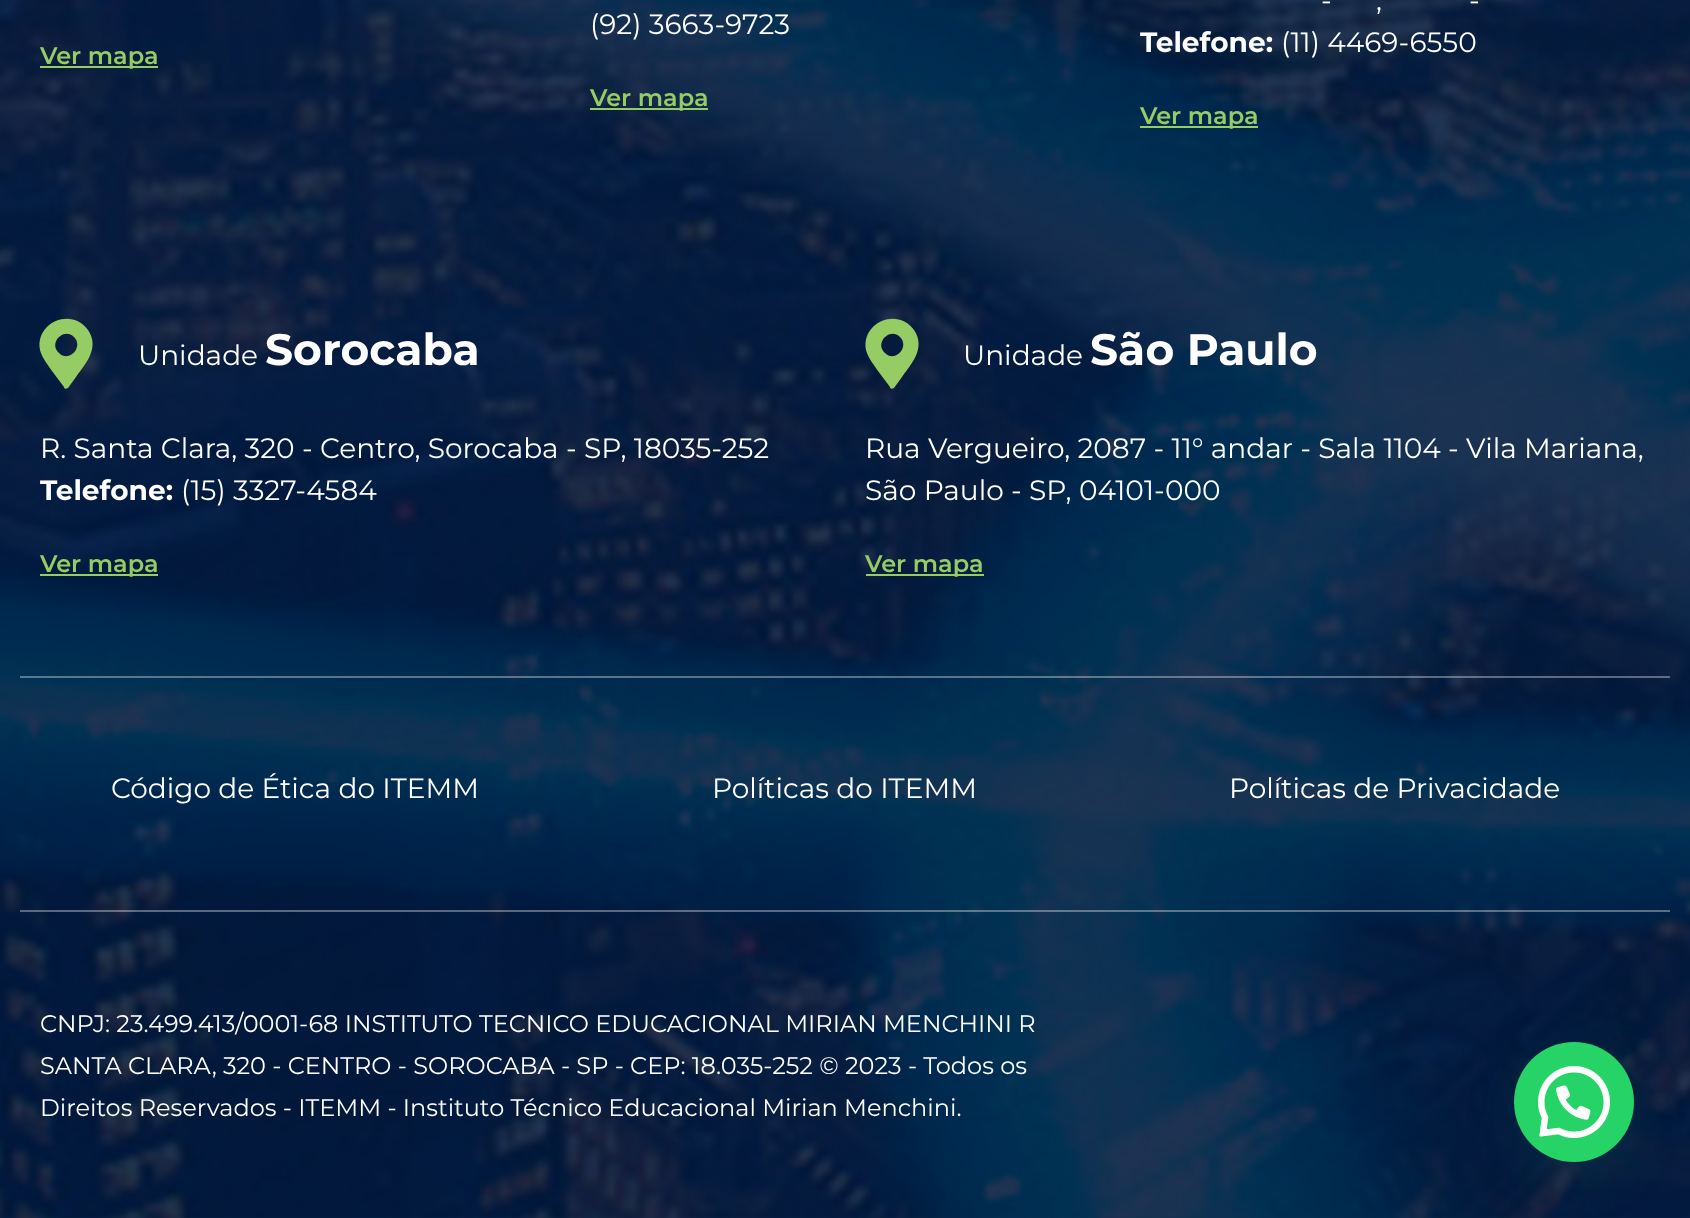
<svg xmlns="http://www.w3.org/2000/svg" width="1690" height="1218">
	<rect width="100%" height="100%" fill="#FFFFFF" />
	<image x="0" y="0" width="1690" height="1218" href="assets/img1.png" />
	<rect x="40" y="66" width="118" height="2" fill="#96CC64" />
	<text x="40" y="64" font-family="Montserrat" font-size="24" font-weight="600" fill="#96CC64">Ver mapa</text>
	<text x="590" y="34" font-family="Montserrat" font-size="28" fill="#FFFFFF">(92) 3663-9723</text>
	<rect x="590" y="108" width="118" height="2" fill="#96CC64" />
	<text x="590" y="106" font-family="Montserrat" font-size="24" font-weight="600" fill="#96CC64">Ver mapa</text>
	<g font-family="Montserrat" font-size="28" fill="#FFFFFF">
		<text x="1321" y="10">-</text>
		<text x="1469" y="10">-</text>
		<text x="1376" y="10">,</text>
	</g>
	<text x="1140" y="52" font-family="Montserrat" font-size="28" font-weight="700" fill="#FFFFFF">Telefone:</text>
	<text x="1281" y="52" font-family="Montserrat" font-size="28" fill="#FFFFFF">(11) 4469-6550</text>
	<rect x="1140" y="126" width="118" height="2" fill="#96CC64" />
	<text x="1140" y="124" font-family="Montserrat" font-size="24" font-weight="600" fill="#96CC64">Ver mapa</text>
	<path d="M64 387L52 371C48 365 42 358 40 350C35 322 72 307 88 330C100 348 86 363 76 377L68 388C66 389 64 389 64 387ZM59 353C69 363 84 347 74 337C64 327 48 343 59 353Z" fill="#96CC64" />
	<text x="138" y="365" font-family="Montserrat" font-size="28" fill="#FFFFFF">Unidade</text>
	<text x="265" y="365" font-family="Montserrat" font-size="44" font-weight="700" fill="#FFFFFF">Sorocaba</text>
	<text x="40" y="458" font-family="Montserrat" font-size="28" fill="#FFFFFF">R. Santa Clara, 320 - Centro, Sorocaba - SP, 18035-252</text>
	<text x="40" y="500" font-family="Montserrat" font-size="28" font-weight="700" fill="#FFFFFF">Telefone:</text>
	<text x="181" y="500" font-family="Montserrat" font-size="28" fill="#FFFFFF">(15) 3327-4584</text>
	<rect x="40" y="574" width="118" height="2" fill="#96CC64" />
	<text x="40" y="572" font-family="Montserrat" font-size="24" font-weight="600" fill="#96CC64">Ver mapa</text>
	<path d="M890 387L878 371C874 365 868 358 866 350C861 322 898 307 914 330C926 348 912 363 902 377L894 388C892 389 890 389 890 387ZM885 353C895 363 910 347 900 337C890 327 874 343 885 353Z" fill="#96CC64" />
	<text x="963" y="365" font-family="Montserrat" font-size="28" fill="#FFFFFF">Unidade</text>
	<text x="1090" y="365" font-family="Montserrat" font-size="44" font-weight="700" fill="#FFFFFF">São Paulo</text>
	<g font-family="Montserrat" font-size="28" fill="#FFFFFF">
		<text x="865" y="458">Rua Vergueiro, 2087 - 11° andar - Sala 1104 - Vila Mariana,</text>
		<text x="865" y="500">São Paulo - SP, 04101-000</text>
	</g>
	<rect x="866" y="574" width="118" height="2" fill="#96CC64" />
	<text x="865" y="572" font-family="Montserrat" font-size="24" font-weight="600" fill="#96CC64">Ver mapa</text>
	<rect x="20" y="676" width="1650" height="2" fill="#FFFFFF" fill-opacity="0.35" />
	<g font-family="Montserrat" font-size="28" fill="#FFFFFF">
		<text x="111" y="798">Código de Ética do ITEMM</text>
		<text x="712" y="798">Políticas do ITEMM</text>
		<text x="1229" y="798">Políticas de Privacidade</text>
	</g>
	<rect x="20" y="910" width="1650" height="2" fill="#FFFFFF" fill-opacity="0.35" />
	<g font-family="Montserrat" font-size="24" fill="#FFFFFF">
		<text x="40" y="1032">CNPJ: 23.499.413/0001-68 INSTITUTO TECNICO EDUCACIONAL MIRIAN MENCHINI R</text>
		<text x="40" y="1074">SANTA CLARA, 320 - CENTRO - SOROCABA - SP - CEP: 18.035-252 © 2023 - Todos os</text>
		<text x="40" y="1116">Direitos Reservados - ITEMM - Instituto Técnico Educacional Mirian Menchini.</text>
	</g>
	<rect x="1516" y="1054" width="120" height="120" rx="60" fill="#075E54" fill-opacity="0.24" filter="blur(24px)" />
	<circle cx="1574" cy="1102" r="60" fill="#25D366" />
	<image x="1538" y="1066" width="72" height="72" href="assets/img2.png" />
</svg>
